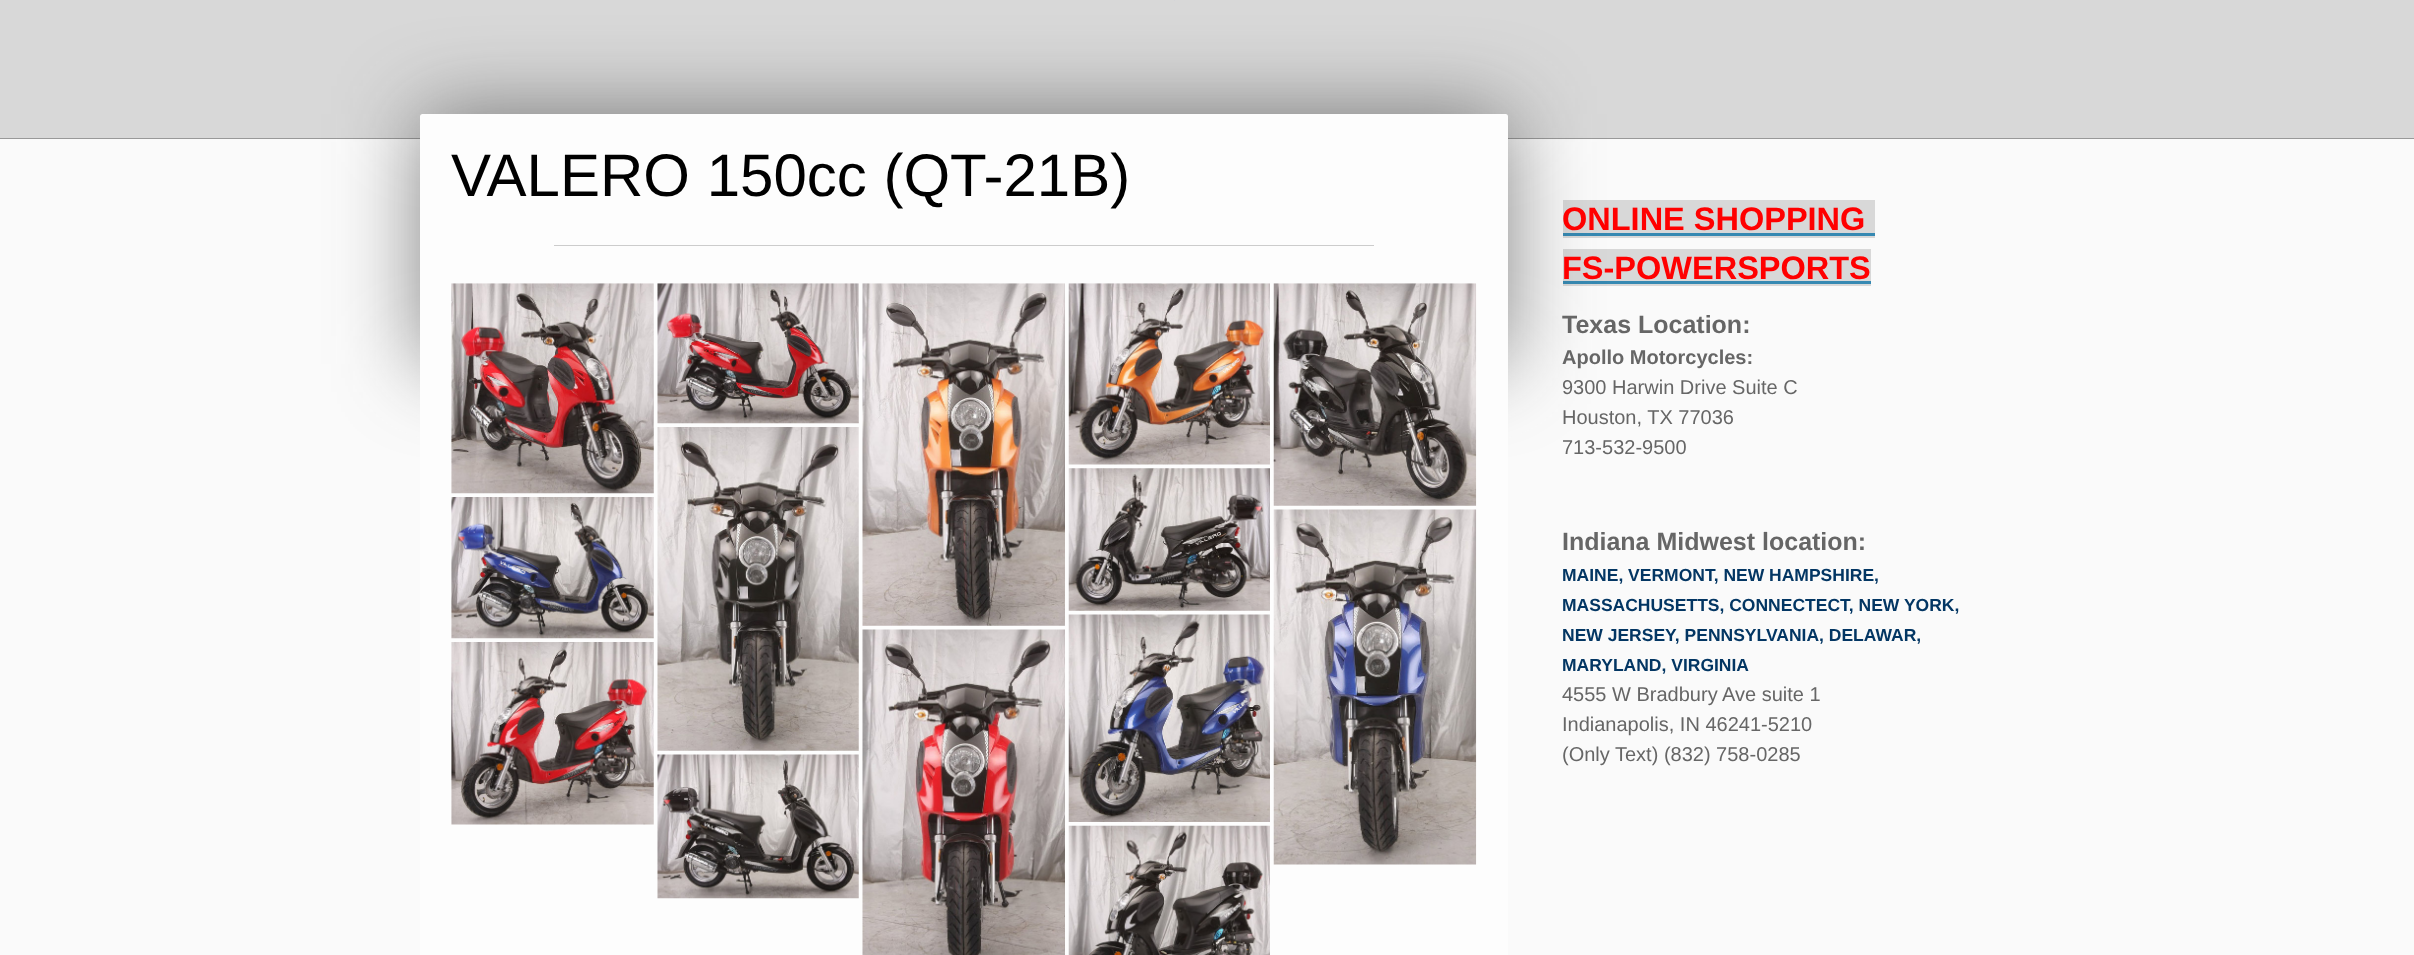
<svg xmlns="http://www.w3.org/2000/svg" width="2414" height="955">
	<rect width="100%" height="100%" fill="#FAFAFA" />
	<rect x="0" y="0" width="2414" height="138" fill="#D8D8D8" />
	<rect x="1174" y="0" width="1" height="1" fill="#D4D4D8" />
	<rect x="0" y="138" width="2414" height="1" fill="#999999" />
	<rect x="1563" y="200" width="312" height="38" fill="#D8D8D8" />
	<rect x="1563" y="233" width="312" height="3" fill="#3689B2" />
	<rect x="1563" y="249" width="308" height="37" fill="#D8D8D8" />
	<rect x="1563" y="281" width="308" height="3" fill="#3689B2" />
	<rect x="420" y="114" width="1088" height="250" fill="#333333" fill-opacity="0.6" filter="blur(42.5px)" />
	<rect x="420" y="114" width="1088" height="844" rx="2.5" fill="#FDFDFD" />
	<text x="451" y="196" font-family="Liberation Sans" font-size="60" fill="#000000">VALERO 150cc (QT-21B)</text>
	<rect x="554" y="245" width="820" height="1" fill="#CCCCCC" />
	<image x="451" y="283" width="203" height="211" href="assets/img1.png" />
	<image x="451" y="497" width="203" height="142" href="assets/img2.png" />
	<image x="451" y="642" width="203" height="183" href="assets/img3.png" />
	<image x="657" y="283" width="202" height="141" href="assets/img4.png" />
	<image x="657" y="427" width="202" height="324" href="assets/img5.png" />
	<image x="657" y="754" width="202" height="145" href="assets/img6.png" />
	<image x="862" y="283" width="203" height="343" href="assets/img7.png" />
	<image x="862" y="629" width="203" height="326" href="assets/img8.png" />
	<image x="1068" y="283" width="202" height="182" href="assets/img9.png" />
	<image x="1068" y="468" width="202" height="143" href="assets/img10.png" />
	<image x="1068" y="614" width="202" height="208" href="assets/img11.png" />
	<image x="1068" y="825" width="202" height="130" href="assets/img12.png" />
	<image x="1273" y="283" width="204" height="223" href="assets/img13.png" />
	<image x="1273" y="509" width="204" height="356" href="assets/img14.png" />
	<g font-family="Liberation Sans" font-size="32.5" font-weight="700" fill="#FF0000">
		<text x="1562" y="230">ONLINE SHOPPING</text>
		<text x="1562" y="279">FS-POWERSPORTS</text>
	</g>
	<text x="1562" y="333" font-family="Liberation Sans" font-size="25" font-weight="700" fill="#666666">Texas Location:</text>
	<text x="1562" y="364" font-family="Liberation Sans" font-size="20" font-weight="700" fill="#666666">Apollo Motorcycles:</text>
	<g font-family="Liberation Sans" font-size="20" fill="#666666">
		<text x="1562" y="394">9300 Harwin Drive Suite C</text>
		<text x="1562" y="424">Houston, TX 77036</text>
		<text x="1562" y="454">713-532-9500</text>
	</g>
	<text x="1562" y="550" font-family="Liberation Sans" font-size="25" font-weight="700" fill="#666666">Indiana Midwest location:</text>
	<g font-family="Liberation Sans" font-size="17.5" font-weight="700" fill="#033663">
		<text x="1562" y="581">MAINE, VERMONT, NEW HAMPSHIRE,</text>
		<text x="1562" y="611">MASSACHUSETTS, CONNECTECT, NEW YORK,</text>
		<text x="1562" y="641">NEW JERSEY, PENNSYLVANIA, DELAWAR,</text>
		<text x="1562" y="671">MARYLAND, VIRGINIA</text>
	</g>
	<g font-family="Liberation Sans" font-size="20" fill="#666666">
		<text x="1562" y="701">4555 W Bradbury Ave suite 1</text>
		<text x="1562" y="731">Indianapolis, IN 46241-5210</text>
		<text x="1562" y="761">(Only Text) (832) 758-0285</text>
	</g>
</svg>
